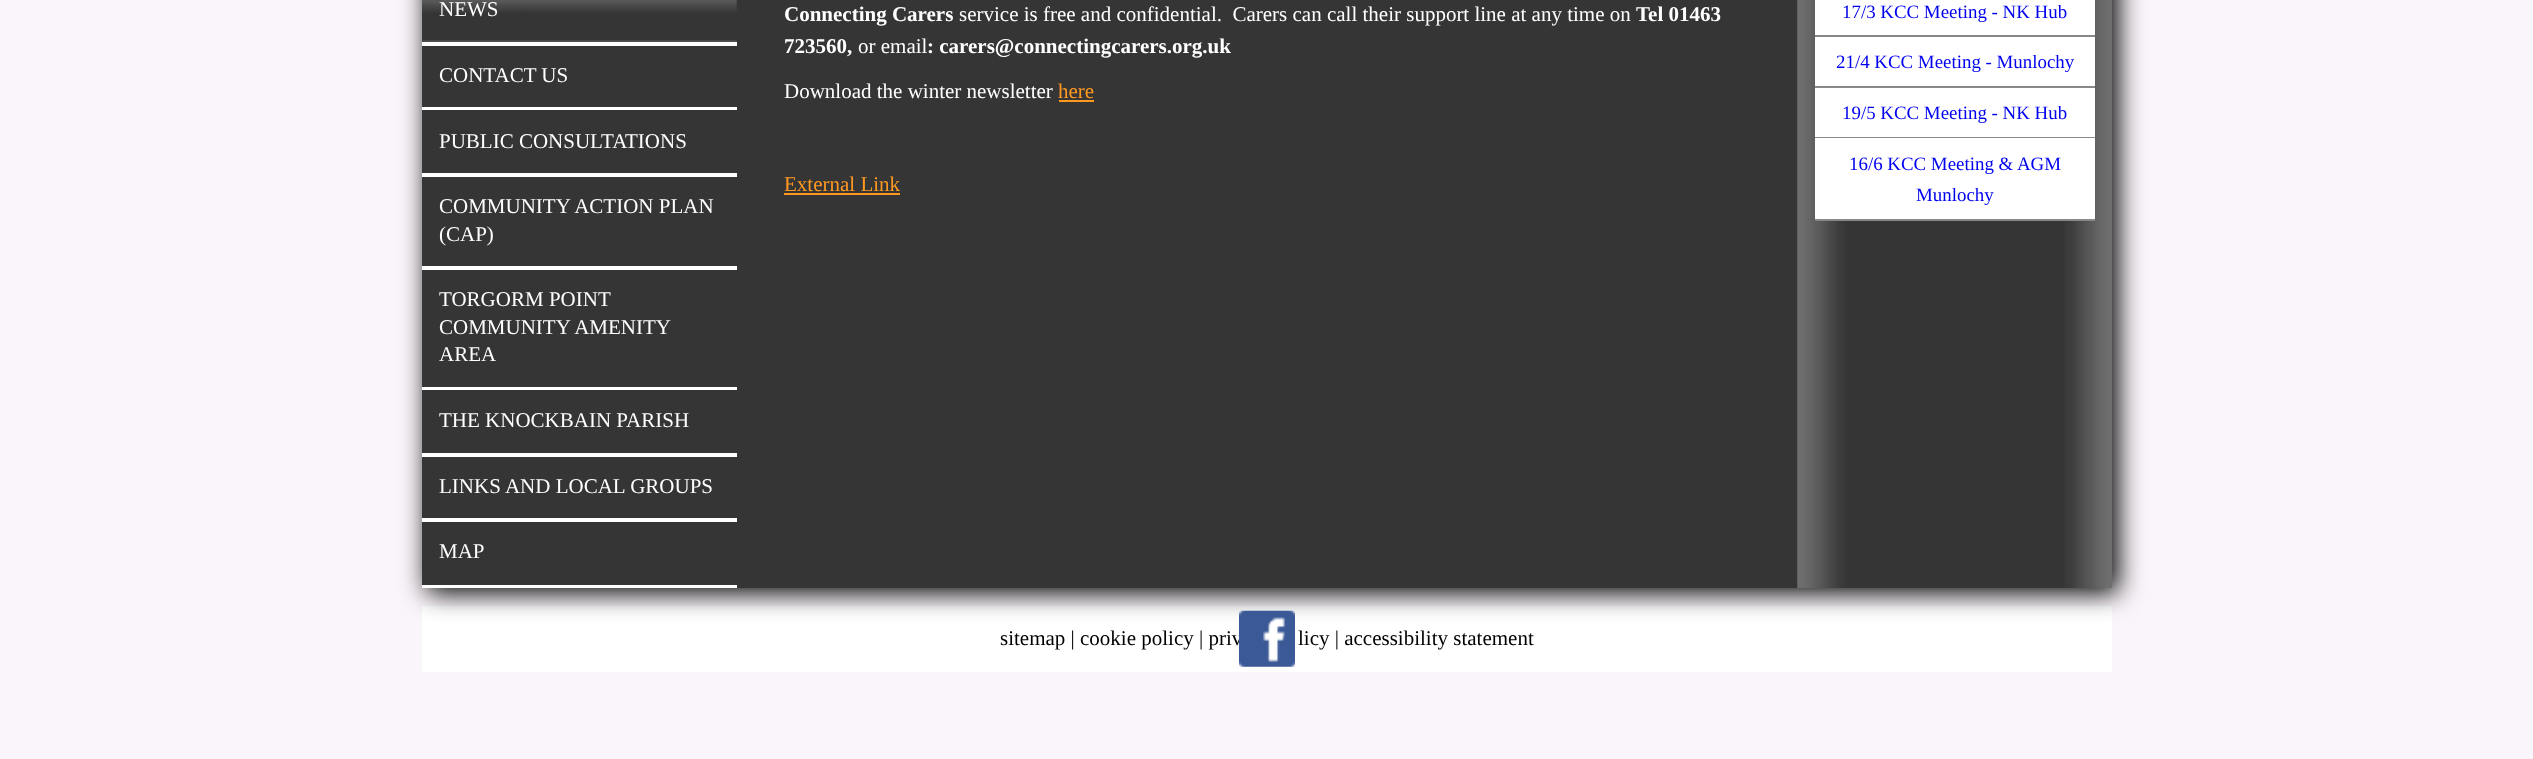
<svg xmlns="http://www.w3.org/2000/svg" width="2533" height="759">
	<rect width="100%" height="100%" fill="#FAF5FA" />
	<rect x="422" y="606" width="1690" height="66" fill="#FFFFFF" />
	<rect x="427" y="-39" width="1691" height="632" fill="#000000" filter="blur(13px)" />
	<rect x="737" y="0" width="1061" height="588" fill="#353535" />
	<rect x="422" y="42" width="315" height="546" fill="#FFFFFF" />
	<rect x="422" y="0" width="315" height="42" fill="#353535" />
	<image x="422" y="0" width="315" height="42" href="assets/img1.png" />
	<text x="439" y="16" font-family="Liberation Serif" font-size="21" fill="#FFFFFF">NEWS</text>
	<rect x="422" y="46" width="315" height="61" fill="#353535" />
	<text x="439" y="82" font-family="Liberation Serif" font-size="21" fill="#FFFFFF">CONTACT US</text>
	<rect x="422" y="110" width="315" height="63" fill="#353535" />
	<text x="439" y="148" font-family="Liberation Serif" font-size="21" fill="#FFFFFF">PUBLIC CONSULTATIONS</text>
	<rect x="422" y="177" width="315" height="89" fill="#353535" />
	<g font-family="Liberation Serif" font-size="21" fill="#FFFFFF">
		<text x="439" y="213">COMMUNITY ACTION PLAN</text>
		<text x="439" y="241">(CAP)</text>
	</g>
	<rect x="422" y="270" width="315" height="117" fill="#353535" />
	<g font-family="Liberation Serif" font-size="21" fill="#FFFFFF">
		<text x="439" y="306">TORGORM POINT</text>
		<text x="439" y="334">COMMUNITY AMENITY</text>
		<text x="439" y="361">AREA</text>
	</g>
	<rect x="422" y="390" width="315" height="63" fill="#353535" />
	<text x="439" y="427" font-family="Liberation Serif" font-size="21" fill="#FFFFFF">THE KNOCKBAIN PARISH</text>
	<rect x="422" y="457" width="315" height="61" fill="#353535" />
	<text x="439" y="493" font-family="Liberation Serif" font-size="21" fill="#FFFFFF">LINKS AND LOCAL GROUPS</text>
	<rect x="422" y="522" width="315" height="63" fill="#353535" />
	<text x="439" y="558" font-family="Liberation Serif" font-size="21" fill="#FFFFFF">MAP</text>
	<text x="784" y="21" font-family="Liberation Serif" font-size="21" font-weight="700" fill="#FFFFFF">Connecting Carers</text>
	<text x="959" y="21" font-family="Liberation Serif" font-size="21" fill="#FFFFFF" xml:space="preserve">service is free and confidential.  Carers can call their support line at any time on</text>
	<g font-family="Liberation Serif" font-size="21" font-weight="700" fill="#FFFFFF">
		<text x="1636" y="21">Tel 01463</text>
		<text x="784" y="53">723560,</text>
	</g>
	<text x="858" y="53" font-family="Liberation Serif" font-size="21" fill="#FFFFFF">or email</text>
	<text x="927" y="53" font-family="Liberation Serif" font-size="21" font-weight="700" fill="#FFFFFF">: carers@connectingcarers.org.uk</text>
	<text x="784" y="98" font-family="Liberation Serif" font-size="21" fill="#FFFFFF">Download the winter newsletter</text>
	<text x="1058" y="98" font-family="Liberation Serif" font-size="21" fill="#FF9922">here</text>
	<rect x="1059" y="100" width="35" height="2" fill="#FF9922" />
	<text x="784" y="191" font-family="Liberation Serif" font-size="21" fill="#FF9922">External Link</text>
	<rect x="784" y="193" width="116" height="2" fill="#FF9922" />
	<image x="1797" y="0" width="315" height="588" href="assets/img2.png" />
	<rect x="1815" y="0" width="280" height="35" fill="#FFFFFF" />
	<rect x="1815" y="35" width="280" height="2" fill="#888888" />
	<text x="1842" y="18" font-family="Liberation Serif" font-size="18.9" fill="#0000EE">17/3 KCC Meeting - NK Hub</text>
	<rect x="1815" y="37" width="280" height="49" fill="#FFFFFF" />
	<rect x="1815" y="86" width="280" height="2" fill="#888888" />
	<text x="1836" y="68" font-family="Liberation Serif" font-size="18.9" fill="#0000EE">21/4 KCC Meeting - Munlochy</text>
	<rect x="1815" y="88" width="280" height="49" fill="#FFFFFF" />
	<rect x="1815" y="137" width="280" height="1" fill="#888888" />
	<text x="1842" y="119" font-family="Liberation Serif" font-size="18.9" fill="#0000EE">19/5 KCC Meeting - NK Hub</text>
	<rect x="1815" y="138" width="280" height="81" fill="#FFFFFF" />
	<rect x="1815" y="219" width="280" height="2" fill="#888888" />
	<g font-family="Liberation Serif" font-size="18.9" fill="#0000EE">
		<text x="1849" y="170">16/6 KCC Meeting &amp; AGM</text>
		<text x="1916" y="201">Munlochy</text>
	</g>
	<text x="1000" y="645" font-family="Liberation Serif" font-size="21" fill="#000000">sitemap | cookie policy | priv</text>
	<image x="1239" y="610" width="56" height="57" href="assets/img3.png" />
	<text x="1298" y="645" font-family="Liberation Serif" font-size="21" fill="#000000">licy | accessibility statement</text>
</svg>
